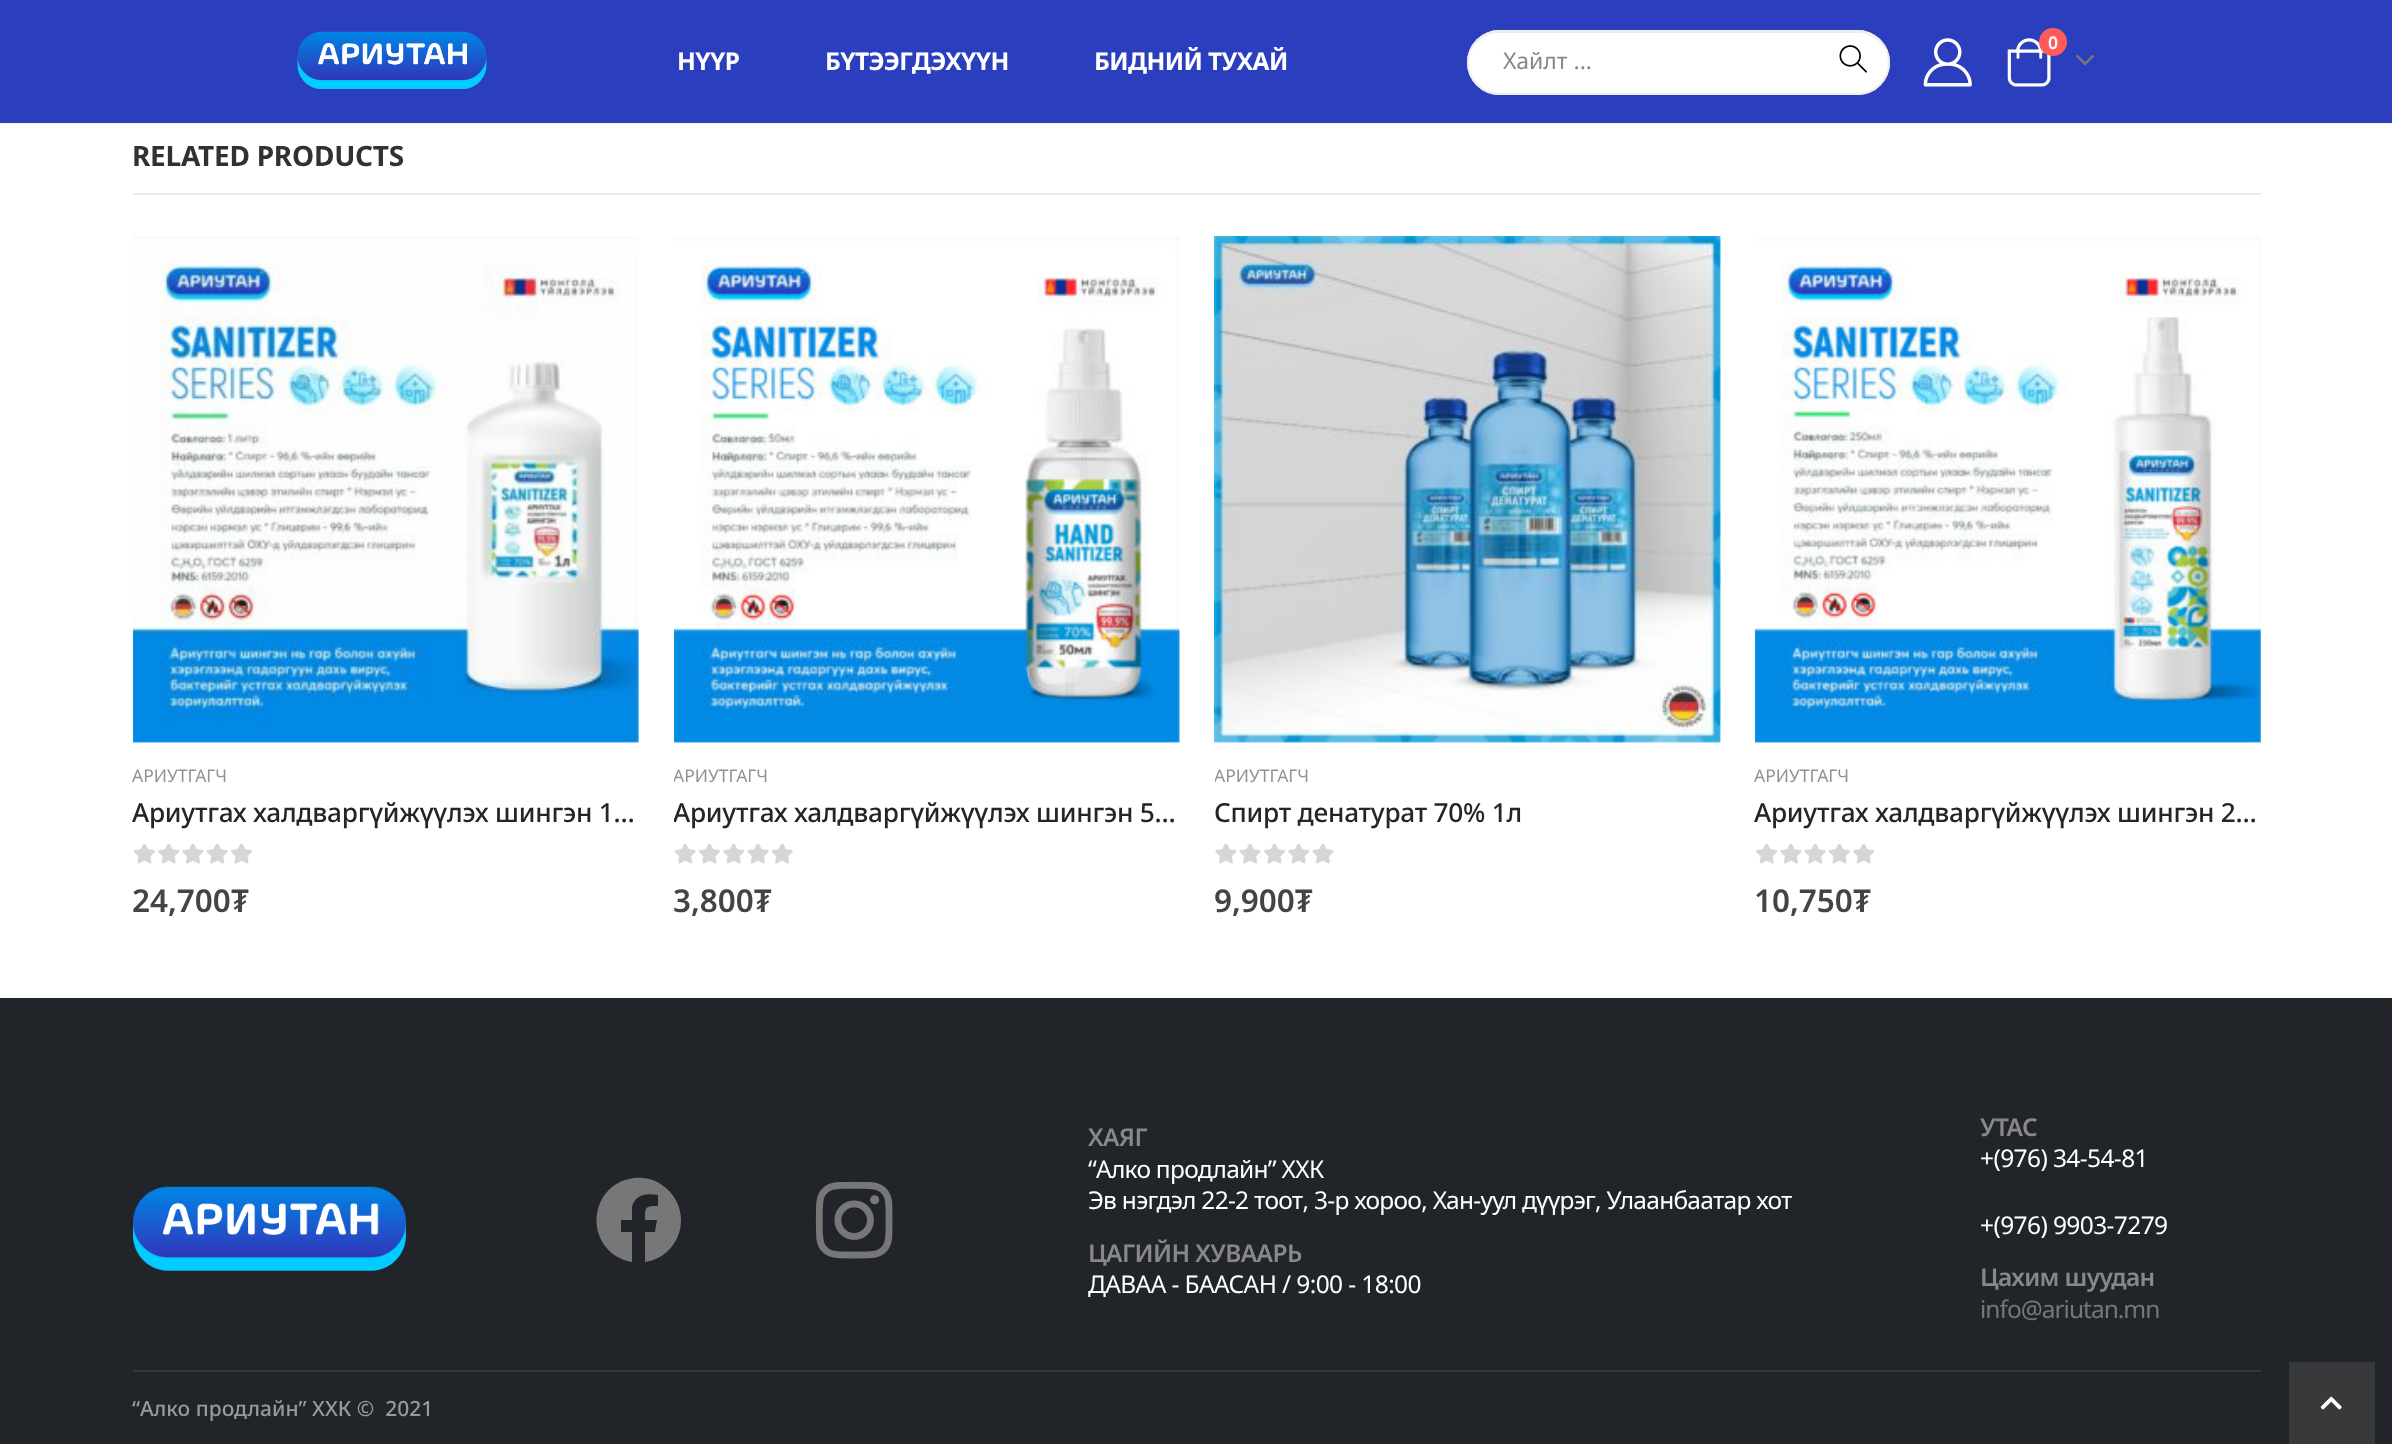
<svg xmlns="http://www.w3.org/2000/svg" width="2392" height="1444">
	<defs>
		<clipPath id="clip1"><rect x="674" y="761" width="506" height="30" /></clipPath>
		<clipPath id="clip2"><rect x="674" y="791" width="506" height="40" /></clipPath>
		<clipPath id="clip3"><rect x="1215" y="761" width="505" height="30" /></clipPath>
	</defs>
	<rect width="100%" height="100%" fill="#FFFFFF" />
	<rect x="0" y="123" width="2392" height="1" fill="#F0F0F0" />
	<rect x="0" y="0" width="2392" height="123" fill="#2B3FBE" />
	<image x="297" y="31" width="190" height="58" href="assets/img1.png" />
	<g font-family="Noto Sans" font-size="24.5" font-weight="700" letter-spacing="-0.6" fill="#FFFFFF">
		<text x="677" y="70">НҮҮР</text>
		<text x="825" y="70">БҮТЭЭГДЭХҮҮН</text>
		<text x="1094" y="70">БИДНИЙ ТУХАЙ</text>
	</g>
	<rect x="1467" y="30" width="423" height="65" rx="32.5" fill="#FFFFFF" />
	<path d="M1499 33H1858C1875 33 1888 47 1888 63C1888 46 1874 32 1858 32H1498C1482 32 1468 46 1468 63C1468 47 1482 33 1499 33Z" fill="#ECECEC" />
	<rect x="1468" y="31" width="421" height="63" rx="31.5" fill="none" stroke="#EEEEEE" stroke-width="2" />
	<text x="1503" y="69" font-family="Noto Sans" font-size="23" fill="#888888">Хайлт ...</text>
	<image x="1839" y="45" width="28" height="28" href="assets/img2.png" />
	<image x="1923" y="38" width="49" height="49" href="assets/img3.png" />
	<image x="2007" y="38" width="44" height="49" href="assets/img4.png" />
	<circle cx="2053" cy="42" r="14" fill="#FF5B5B" />
	<text x="2048" y="49" font-family="Noto Sans" font-size="17.5" font-weight="600" fill="#FFFFFF">0</text>
	<image x="2076" y="54" width="19" height="12" href="assets/img5.png" />
	<rect x="133" y="193" width="2128" height="2" fill="#EBEBEB" />
	<text x="132" y="166" font-family="Noto Sans" font-size="28" font-weight="700" letter-spacing="-0.25" fill="#313131">RELATED PRODUCTS</text>
	<image x="133" y="236" width="506" height="507" href="assets/img6.png" />
	<text x="132" y="782" font-family="Noto Sans" font-size="17.5" fill="#929292">АРИУТГАГЧ</text>
	<text x="132" y="822" font-family="Noto Sans" font-size="26.25" font-weight="500" letter-spacing="-0.25" fill="#222529">Ариутгах халдваргүйжүүлэх шингэн 1…</text>
	<image x="134" y="844" width="118" height="20" href="assets/img7.png" />
	<text x="132" y="912" font-family="Noto Sans" font-size="31.5" font-weight="600" fill="#444444">24,700₮</text>
	<image x="674" y="236" width="506" height="507" href="assets/img8.png" />
	<g clip-path="url(#clip1)">
		<text x="673" y="782" font-family="Noto Sans" font-size="17.5" fill="#929292">АРИУТГАГЧ</text>
	</g>
	<g clip-path="url(#clip2)">
		<text x="673" y="822" font-family="Noto Sans" font-size="26.25" font-weight="500" letter-spacing="-0.25" fill="#222529">Ариутгах халдваргүйжүүлэх шингэн 5…</text>
	</g>
	<image x="674" y="844" width="119" height="20" href="assets/img9.png" />
	<text x="673" y="912" font-family="Noto Sans" font-size="31.5" font-weight="600" fill="#444444">3,800₮</text>
	<image x="1214" y="236" width="507" height="507" href="assets/img10.png" />
	<g clip-path="url(#clip3)">
		<text x="1214" y="782" font-family="Noto Sans" font-size="17.5" fill="#929292">АРИУТГАГЧ</text>
	</g>
	<text x="1214" y="822" font-family="Noto Sans" font-size="26.25" font-weight="500" letter-spacing="-0.25" fill="#222529">Спирт денатурат 70% 1л</text>
	<image x="1215" y="844" width="119" height="20" href="assets/img11.png" />
	<text x="1214" y="912" font-family="Noto Sans" font-size="31.5" font-weight="600" fill="#444444">9,900₮</text>
	<image x="1755" y="236" width="506" height="507" href="assets/img12.png" />
	<text x="1754" y="782" font-family="Noto Sans" font-size="17.5" fill="#929292">АРИУТГАГЧ</text>
	<text x="1754" y="822" font-family="Noto Sans" font-size="26.25" font-weight="500" letter-spacing="-0.25" fill="#222529">Ариутгах халдваргүйжүүлэх шингэн 2…</text>
	<image x="1756" y="844" width="119" height="20" href="assets/img13.png" />
	<text x="1754" y="912" font-family="Noto Sans" font-size="31.5" font-weight="600" fill="#444444">10,750₮</text>
	<rect x="0" y="998" width="2392" height="446" fill="#212529" />
	<image x="133" y="1186" width="273" height="85" href="assets/img14.png" />
	<path d="M681 1220C681 1241 666 1259 645 1262V1232H655L657 1220H645C645 1208 644 1206 658 1206V1195C647 1193 635 1194 632 1207V1220H621V1232H632V1262C596 1256 584 1211 612 1187C618 1182 626 1179 634 1178C644 1177 654 1179 662 1185C674 1193 681 1206 681 1220Z" fill="#777777" />
	<image x="815" y="1181" width="78" height="78" href="assets/img15.png" />
	<text x="1088" y="1146" font-family="Noto Sans" font-size="24.5" font-weight="600" letter-spacing="-0.6" fill="#888888">ХАЯГ</text>
	<g font-family="Noto Sans" font-size="24.5" letter-spacing="-0.73" fill="#FFFFFF">
		<text x="1088" y="1178">“Алко продлайн” ХХК</text>
		<text x="1088" y="1209">Эв нэгдэл 22-2 тоот, 3-р хороо, Хан-уул дүүрэг, Улаанбаатар хот</text>
	</g>
	<text x="1088" y="1262" font-family="Noto Sans" font-size="24.5" font-weight="600" letter-spacing="-0.6" fill="#888888">ЦАГИЙН ХУВААРЬ</text>
	<text x="1088" y="1293" font-family="Noto Sans" font-size="24.5" letter-spacing="-0.6" fill="#FFFFFF">ДАВАА - БААСАН / 9:00 - 18:00</text>
	<text x="1980" y="1136" font-family="Noto Sans" font-size="24.5" font-weight="600" letter-spacing="-0.6" fill="#888888">УТАС</text>
	<g font-family="Noto Sans" font-size="24.5" letter-spacing="-0.6" fill="#FFFFFF">
		<text x="1980" y="1167">+(976) 34-54-81</text>
		<text x="1980" y="1234">+(976) 9903-7279</text>
	</g>
	<text x="1980" y="1286" font-family="Noto Sans" font-size="24.5" font-weight="600" letter-spacing="-0.6" fill="#888888">Цахим шуудан</text>
	<text x="1980" y="1318" font-family="Noto Sans" font-size="24.5" letter-spacing="-1" fill="#777777">info@ariutan.mn</text>
	<rect x="133" y="1370" width="2128" height="2" fill="#34383B" />
	<text x="132" y="1416" font-family="Noto Sans" font-size="21" font-weight="500" fill="#999999" xml:space="preserve">“Алко продлайн” ХХК ©  2021</text>
	<rect x="2289" y="1362" width="86" height="82" fill="#38393A" />
	<image x="2320" y="1396" width="22" height="14" href="assets/img16.png" />
</svg>
